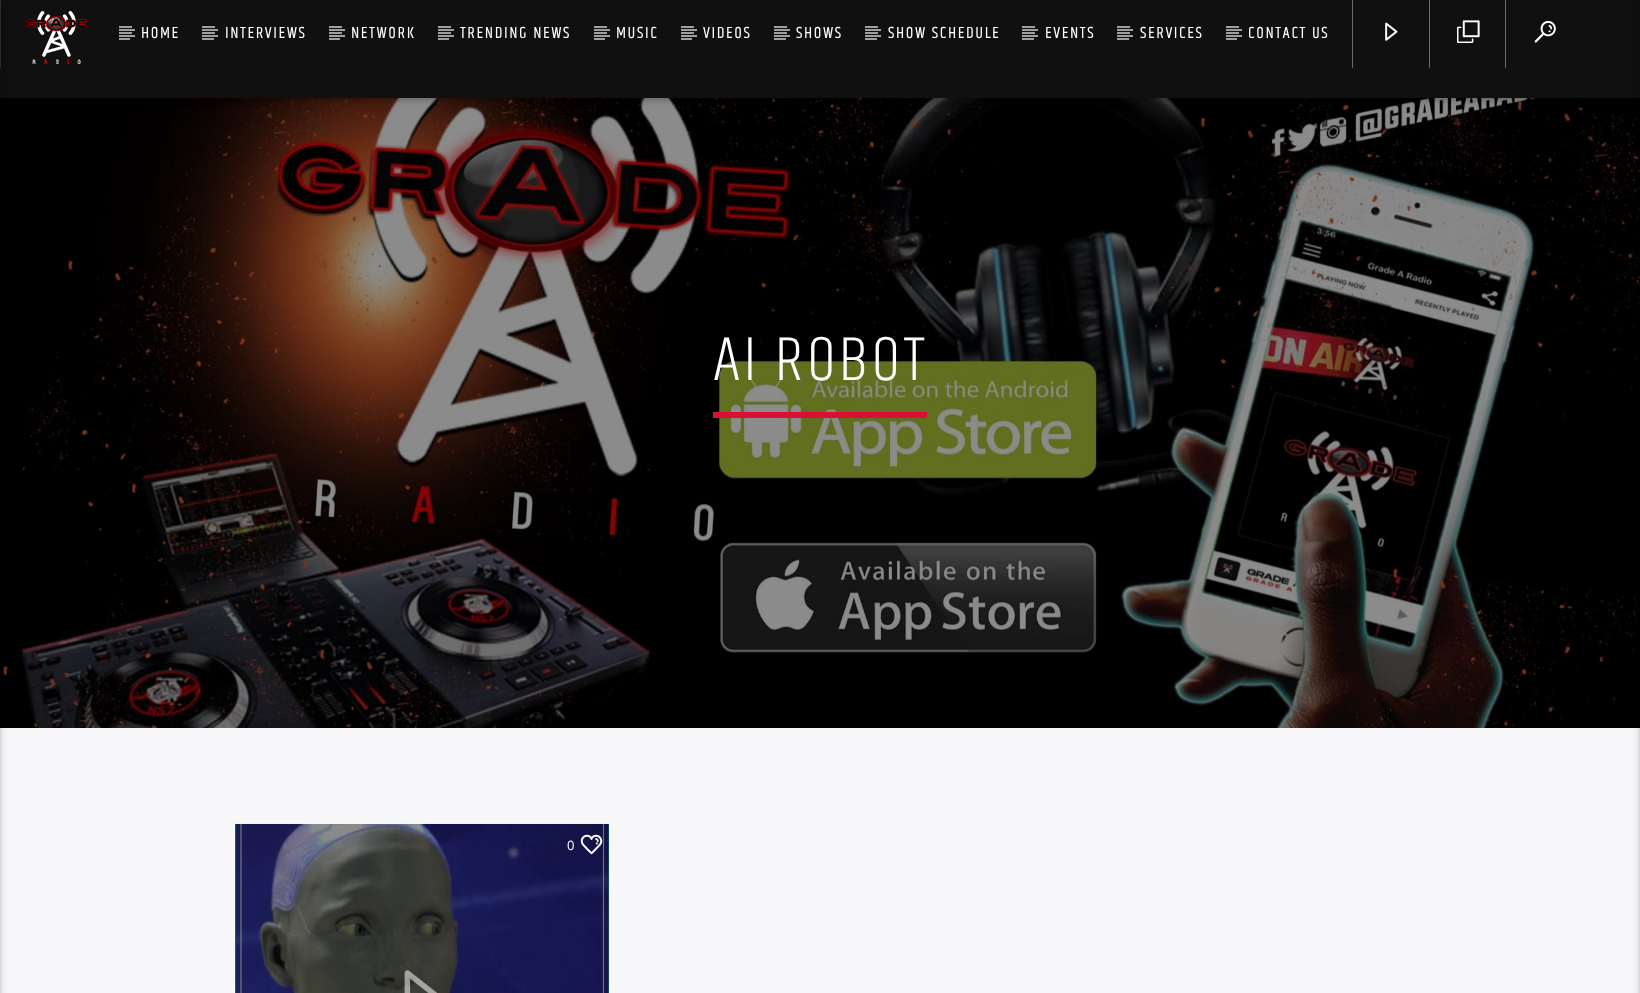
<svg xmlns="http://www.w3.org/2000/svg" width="1640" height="993">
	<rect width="100%" height="100%" fill="#F7F7F9" />
	<rect x="0" y="98" width="1640" height="630" fill="#000000" />
	<image x="2" y="98" width="1638" height="630" href="assets/img5.png" />
	<rect x="0" y="2" width="1640" height="98" fill="#000000" fill-opacity="0.12" filter="blur(5px)" />
	<rect x="0" y="2" width="1640" height="98" fill="#000000" fill-opacity="0.16" filter="blur(2.5px)" />
	<rect x="0" y="0" width="1640" height="98" fill="#101010" />
	<rect x="0" y="0" width="1" height="68" fill="#333333" />
	<rect x="-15" y="2" width="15" height="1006" fill="#000000" fill-opacity="0.12" filter="blur(5px)" />
	<rect x="-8" y="2" width="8" height="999" fill="#000000" fill-opacity="0.16" filter="blur(2.5px)" />
	<image x="26" y="11" width="61" height="53" href="assets/img1.png" />
	<rect x="119" y="38" width="11" height="2" fill="#9F9F9F" />
	<rect x="119" y="26" width="13" height="2" fill="#9F9F9F" />
	<rect x="119" y="32" width="13" height="2" fill="#9F9F9F" />
	<text x="141" y="38" font-family="Khand" font-size="16" font-weight="700" letter-spacing="2" fill="#FFFFFF">HOME</text>
	<rect x="119" y="29" width="16" height="2" fill="#9F9F9F" />
	<rect x="119" y="35" width="16" height="2" fill="#9F9F9F" />
	<rect x="202" y="38" width="12" height="2" fill="#9F9F9F" />
	<rect x="202" y="26" width="13" height="2" fill="#9F9F9F" />
	<rect x="202" y="32" width="13" height="2" fill="#9F9F9F" />
	<text x="225" y="38" font-family="Khand" font-size="16" font-weight="700" letter-spacing="2" fill="#FFFFFF">INTERVIEWS</text>
	<rect x="202" y="29" width="16" height="2" fill="#9F9F9F" />
	<rect x="202" y="35" width="16" height="2" fill="#9F9F9F" />
	<rect x="329" y="38" width="11" height="2" fill="#9F9F9F" />
	<rect x="329" y="26" width="13" height="2" fill="#9F9F9F" />
	<rect x="329" y="32" width="13" height="2" fill="#9F9F9F" />
	<text x="351" y="38" font-family="Khand" font-size="16" font-weight="700" letter-spacing="2" fill="#FFFFFF">NETWORK</text>
	<rect x="329" y="29" width="16" height="2" fill="#9F9F9F" />
	<rect x="329" y="35" width="16" height="2" fill="#9F9F9F" />
	<rect x="438" y="38" width="11" height="2" fill="#9F9F9F" />
	<rect x="438" y="26" width="13" height="2" fill="#9F9F9F" />
	<rect x="438" y="32" width="13" height="2" fill="#9F9F9F" />
	<text x="460" y="38" font-family="Khand" font-size="16" font-weight="700" letter-spacing="2" fill="#FFFFFF">TRENDING NEWS</text>
	<rect x="438" y="29" width="16" height="2" fill="#9F9F9F" />
	<rect x="438" y="35" width="16" height="2" fill="#9F9F9F" />
	<rect x="594" y="38" width="11" height="2" fill="#9F9F9F" />
	<rect x="594" y="26" width="13" height="2" fill="#9F9F9F" />
	<rect x="594" y="32" width="13" height="2" fill="#9F9F9F" />
	<text x="616" y="38" font-family="Khand" font-size="16" font-weight="700" letter-spacing="2" fill="#FFFFFF">MUSIC</text>
	<rect x="594" y="29" width="16" height="2" fill="#9F9F9F" />
	<rect x="594" y="35" width="16" height="2" fill="#9F9F9F" />
	<rect x="681" y="38" width="11" height="2" fill="#9F9F9F" />
	<rect x="681" y="26" width="13" height="2" fill="#9F9F9F" />
	<rect x="681" y="32" width="13" height="2" fill="#9F9F9F" />
	<text x="703" y="38" font-family="Khand" font-size="16" font-weight="700" letter-spacing="2" fill="#FFFFFF">VIDEOS</text>
	<rect x="681" y="29" width="16" height="2" fill="#9F9F9F" />
	<rect x="681" y="35" width="16" height="2" fill="#9F9F9F" />
	<rect x="774" y="38" width="12" height="2" fill="#9F9F9F" />
	<rect x="774" y="26" width="13" height="2" fill="#9F9F9F" />
	<rect x="774" y="32" width="13" height="2" fill="#9F9F9F" />
	<text x="796" y="38" font-family="Khand" font-size="16" font-weight="700" letter-spacing="2" fill="#FFFFFF">SHOWS</text>
	<rect x="774" y="29" width="16" height="2" fill="#9F9F9F" />
	<rect x="774" y="35" width="16" height="2" fill="#9F9F9F" />
	<rect x="865" y="38" width="12" height="2" fill="#9F9F9F" />
	<rect x="865" y="26" width="13" height="2" fill="#9F9F9F" />
	<rect x="865" y="32" width="13" height="2" fill="#9F9F9F" />
	<text x="888" y="38" font-family="Khand" font-size="16" font-weight="700" letter-spacing="2" fill="#FFFFFF">SHOW SCHEDULE</text>
	<rect x="865" y="29" width="16" height="2" fill="#9F9F9F" />
	<rect x="865" y="35" width="16" height="2" fill="#9F9F9F" />
	<rect x="1022" y="38" width="12" height="2" fill="#9F9F9F" />
	<rect x="1022" y="26" width="13" height="2" fill="#9F9F9F" />
	<rect x="1022" y="32" width="13" height="2" fill="#9F9F9F" />
	<text x="1045" y="38" font-family="Khand" font-size="16" font-weight="700" letter-spacing="2" fill="#FFFFFF">EVENTS</text>
	<rect x="1022" y="29" width="16" height="2" fill="#9F9F9F" />
	<rect x="1022" y="35" width="16" height="2" fill="#9F9F9F" />
	<rect x="1117" y="38" width="12" height="2" fill="#9F9F9F" />
	<rect x="1117" y="26" width="13" height="2" fill="#9F9F9F" />
	<rect x="1117" y="32" width="13" height="2" fill="#9F9F9F" />
	<text x="1140" y="38" font-family="Khand" font-size="16" font-weight="700" letter-spacing="2" fill="#FFFFFF">SERVICES</text>
	<rect x="1117" y="29" width="16" height="2" fill="#9F9F9F" />
	<rect x="1117" y="35" width="16" height="2" fill="#9F9F9F" />
	<rect x="1226" y="38" width="11" height="2" fill="#9F9F9F" />
	<rect x="1226" y="26" width="13" height="2" fill="#9F9F9F" />
	<rect x="1226" y="32" width="13" height="2" fill="#9F9F9F" />
	<text x="1248" y="38" font-family="Khand" font-size="16" font-weight="700" letter-spacing="2" fill="#FFFFFF">CONTACT US</text>
	<rect x="1226" y="29" width="16" height="2" fill="#9F9F9F" />
	<rect x="1226" y="35" width="16" height="2" fill="#9F9F9F" />
	<rect x="1352" y="0" width="1" height="68" fill="#6B6B6B" />
	<image x="1385" y="22" width="13" height="19" href="assets/img2.png" />
	<rect x="1429" y="0" width="1" height="68" fill="#6B6B6B" />
	<image x="1457" y="20" width="23" height="23" href="assets/img3.png" />
	<rect x="1505" y="0" width="1" height="68" fill="#6B6B6B" />
	<image x="1534" y="20" width="22" height="23" href="assets/img4.png" />
	<rect x="1640" y="2" width="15" height="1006" fill="#000000" fill-opacity="0.12" filter="blur(5px)" />
	<rect x="1640" y="2" width="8" height="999" fill="#000000" fill-opacity="0.16" filter="blur(2.5px)" />
	<rect x="713" y="412" width="214" height="6" fill="#DD0E34" />
	<text x="713" y="380" font-family="Khand" font-size="64" font-weight="300" letter-spacing="3.25" fill="#FFFFFF">AI ROBOT</text>
	<rect x="235" y="824" width="374" height="169" fill="#000000" />
	<image x="235" y="823" width="374" height="170" href="assets/img6.png" />
	<text x="567" y="850" font-family="Open Sans" font-size="13" fill="#FFFFFF">0</text>
	<image x="580" y="834" width="23" height="21" href="assets/img7.png" />
	<image x="404" y="970" width="33" height="23" href="assets/img8.png" />
</svg>
